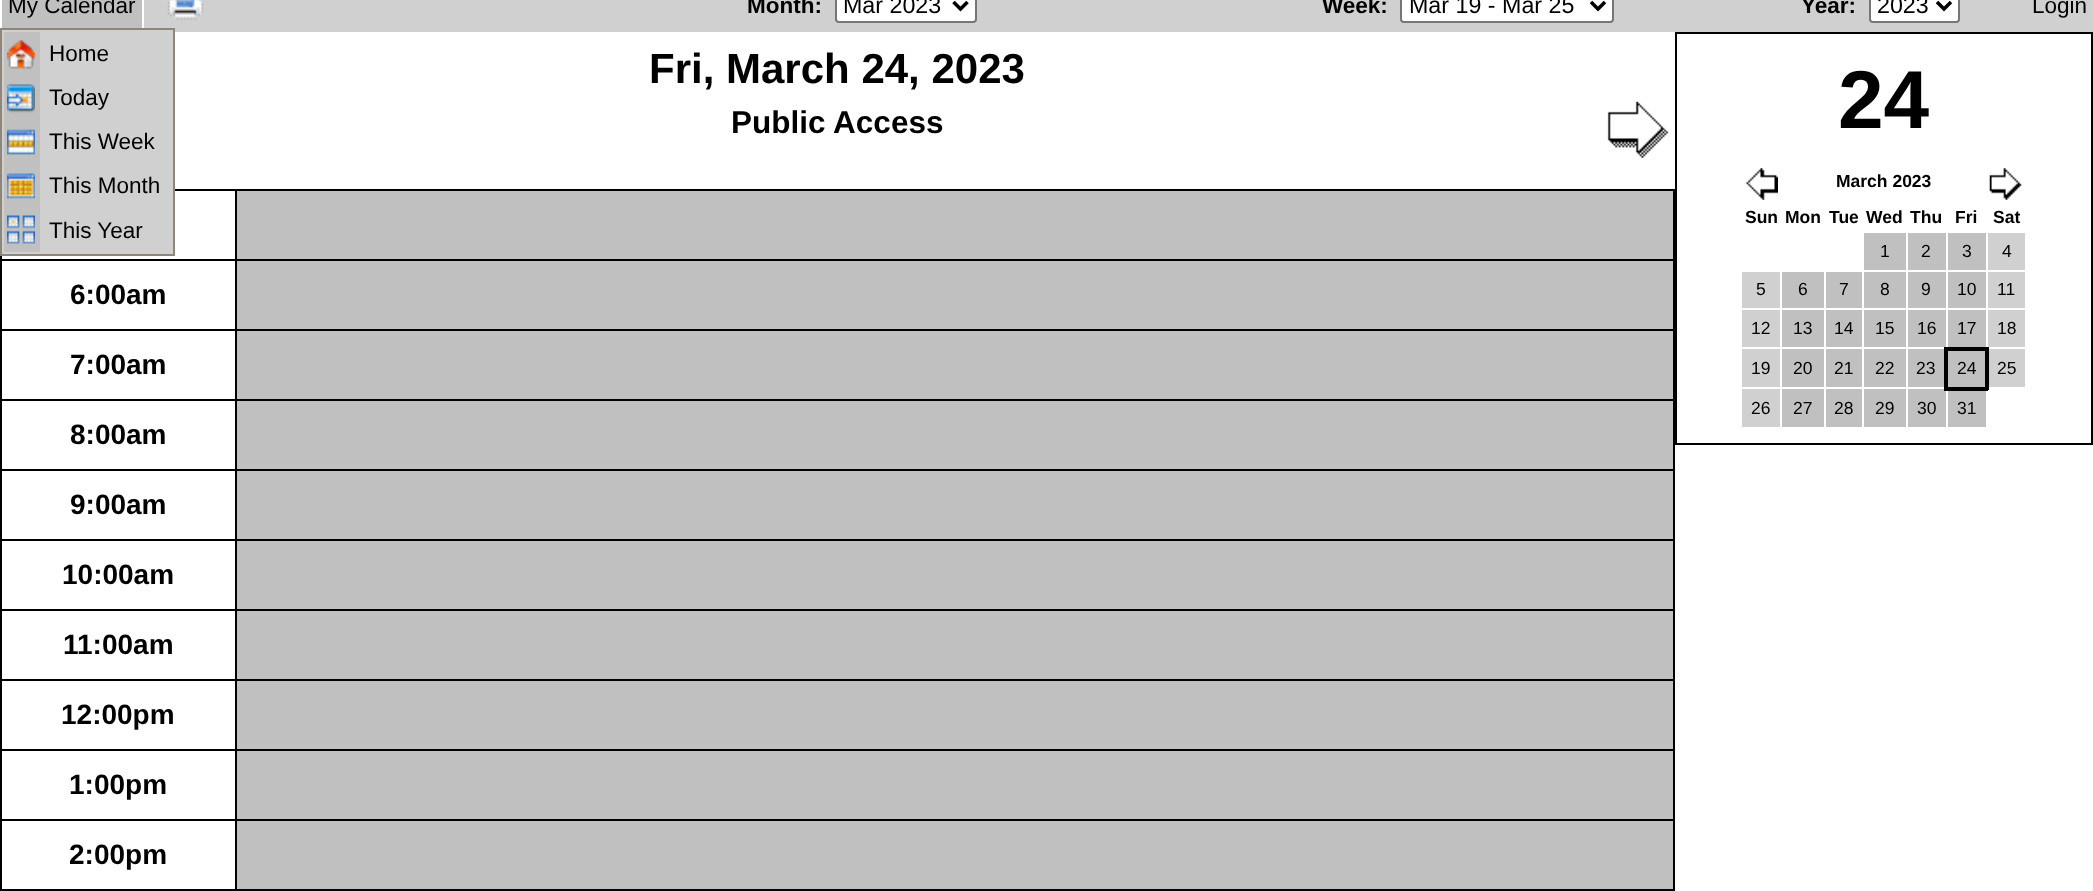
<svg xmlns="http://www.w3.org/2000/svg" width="2093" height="891">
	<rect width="100%" height="100%" fill="#FFFFFF" />
	<rect x="144" y="0" width="1949" height="32" fill="#D0D0D0" />
	<rect x="2" y="0" width="140" height="28" fill="#C0C0C0" />
	<text x="8" y="13" font-family="Liberation Sans" font-size="22.5" fill="#000000">My Calendar</text>
	<image x="167" y="0" width="37" height="20" href="assets/img1.png" />
	<rect x="1" y="29" width="173" height="226" fill="#D0D0D0" stroke="#8C867B" stroke-width="2" />
	<rect x="4" y="32" width="36" height="220" fill="#C0C0C0" />
	<image x="7" y="40" width="28" height="29" href="assets/img2.png" />
	<text x="49" y="61" font-family="Liberation Sans" font-size="22.5" fill="#000000">Home</text>
	<image x="7" y="84" width="28" height="29" href="assets/img3.png" />
	<text x="49" y="105" font-family="Liberation Sans" font-size="22.5" fill="#000000">Today</text>
	<image x="7" y="129" width="28" height="26" href="assets/img4.png" />
	<text x="49" y="149" font-family="Liberation Sans" font-size="22.5" fill="#000000">This Week</text>
	<image x="7" y="173" width="28" height="26" href="assets/img5.png" />
	<text x="49" y="193" font-family="Liberation Sans" font-size="22.5" fill="#000000">This Month</text>
	<image x="7" y="215" width="28" height="29" href="assets/img6.png" />
	<text x="49" y="238" font-family="Liberation Sans" font-size="22.5" fill="#000000">This Year</text>
	<text x="747" y="13" font-family="Liberation Sans" font-size="22.5" font-weight="700" fill="#000000">Month:</text>
	<rect x="836" y="-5" width="140" height="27" rx="3" fill="#FFFFFF" stroke="#767676" stroke-width="2" />
	<path d="M953.5 2L960.5 9L967.5 2" fill="none" stroke="#000000" stroke-width="3.5" />
	<text x="843" y="13" font-family="Liberation Sans" font-size="23.25" fill="#000000">Mar 2023</text>
	<text x="1322" y="13" font-family="Liberation Sans" font-size="22.5" font-weight="700" fill="#000000">Week:</text>
	<rect x="1401" y="-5" width="212" height="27" rx="3" fill="#FFFFFF" stroke="#767676" stroke-width="2" />
	<path d="M1591 2L1598 9L1605 2" fill="none" stroke="#000000" stroke-width="3.5" />
	<text x="1409" y="13" font-family="Liberation Sans" font-size="23.25" fill="#000000">Mar 19 - Mar 25</text>
	<text x="1801" y="13" font-family="Liberation Sans" font-size="22.5" font-weight="700" fill="#000000">Year:</text>
	<rect x="1870" y="-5" width="89" height="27" rx="3" fill="#FFFFFF" stroke="#767676" stroke-width="2" />
	<path d="M1937 2L1944 9L1951 2" fill="none" stroke="#000000" stroke-width="3.5" />
	<text x="1877" y="13" font-family="Liberation Sans" font-size="23.25" fill="#000000">2023</text>
	<text x="2032" y="13" font-family="Liberation Sans" font-size="22.5" fill="#000000">Login</text>
	<text x="649" y="83" font-family="Liberation Sans" font-size="42" font-weight="700" fill="#000000">Fri, March 24, 2023</text>
	<text x="731" y="133" font-family="Liberation Sans" font-size="31.5" font-weight="700" fill="#000000">Public Access</text>
	<image x="1607" y="101" width="62" height="57" href="assets/img7.png" />
	<rect x="1676" y="33" width="416" height="411" fill="none" stroke="#000000" stroke-width="2" />
	<text x="1838" y="128" font-family="Liberation Sans" font-size="82" font-weight="700" fill="#000000">24</text>
	<image x="1746" y="168" width="32" height="32" href="assets/img8.png" />
	<text x="1836" y="187" font-family="Liberation Sans" font-size="17.5" font-weight="700" fill="#000000">March 2023</text>
	<image x="1989" y="168" width="33" height="32" href="assets/img9.png" />
	<g font-family="Liberation Sans" font-size="17.5" font-weight="700" fill="#000000">
		<text x="1745" y="223">Sun</text>
		<text x="1785" y="223">Mon</text>
		<text x="1829" y="223">Tue</text>
		<text x="1866" y="223">Wed</text>
		<text x="1910" y="223">Thu</text>
		<text x="1955" y="223">Fri</text>
		<text x="1993" y="223">Sat</text>
	</g>
	<rect x="1864" y="233" width="42" height="37" fill="#C0C0C0" />
	<text x="1880" y="257" font-family="Liberation Sans" font-size="17.5" fill="#000000">1</text>
	<rect x="1908" y="233" width="38" height="37" fill="#C0C0C0" />
	<text x="1921" y="257" font-family="Liberation Sans" font-size="17.5" fill="#000000">2</text>
	<rect x="1948" y="233" width="38" height="37" fill="#C0C0C0" />
	<text x="1962" y="257" font-family="Liberation Sans" font-size="17.5" fill="#000000">3</text>
	<rect x="1988" y="233" width="37" height="37" fill="#D0D0D0" />
	<text x="2002" y="257" font-family="Liberation Sans" font-size="17.5" fill="#000000">4</text>
	<rect x="1742" y="272" width="38" height="36" fill="#D0D0D0" />
	<text x="1756" y="295" font-family="Liberation Sans" font-size="17.5" fill="#000000">5</text>
	<rect x="1782" y="272" width="42" height="36" fill="#C0C0C0" />
	<text x="1798" y="295" font-family="Liberation Sans" font-size="17.5" fill="#000000">6</text>
	<rect x="1826" y="272" width="36" height="36" fill="#C0C0C0" />
	<text x="1839" y="295" font-family="Liberation Sans" font-size="17.5" fill="#000000">7</text>
	<rect x="1864" y="272" width="42" height="36" fill="#C0C0C0" />
	<text x="1880" y="295" font-family="Liberation Sans" font-size="17.5" fill="#000000">8</text>
	<rect x="1908" y="272" width="38" height="36" fill="#C0C0C0" />
	<text x="1921" y="295" font-family="Liberation Sans" font-size="17.5" fill="#000000">9</text>
	<rect x="1948" y="272" width="38" height="36" fill="#C0C0C0" />
	<text x="1957" y="295" font-family="Liberation Sans" font-size="17.5" fill="#000000">10</text>
	<rect x="1988" y="272" width="37" height="36" fill="#D0D0D0" />
	<text x="1997" y="295" font-family="Liberation Sans" font-size="17.5" fill="#000000">11</text>
	<rect x="1742" y="310" width="38" height="37" fill="#D0D0D0" />
	<text x="1751" y="334" font-family="Liberation Sans" font-size="17.5" fill="#000000">12</text>
	<rect x="1782" y="310" width="42" height="37" fill="#C0C0C0" />
	<text x="1793" y="334" font-family="Liberation Sans" font-size="17.5" fill="#000000">13</text>
	<rect x="1826" y="310" width="36" height="37" fill="#C0C0C0" />
	<text x="1834" y="334" font-family="Liberation Sans" font-size="17.5" fill="#000000">14</text>
	<rect x="1864" y="310" width="42" height="37" fill="#C0C0C0" />
	<text x="1875" y="334" font-family="Liberation Sans" font-size="17.5" fill="#000000">15</text>
	<rect x="1908" y="310" width="38" height="37" fill="#C0C0C0" />
	<text x="1917" y="334" font-family="Liberation Sans" font-size="17.5" fill="#000000">16</text>
	<rect x="1948" y="310" width="38" height="37" fill="#C0C0C0" />
	<text x="1957" y="334" font-family="Liberation Sans" font-size="17.5" fill="#000000">17</text>
	<rect x="1988" y="310" width="37" height="37" fill="#D0D0D0" />
	<text x="1997" y="334" font-family="Liberation Sans" font-size="17.5" fill="#000000">18</text>
	<rect x="1742" y="349" width="38" height="38" fill="#D0D0D0" />
	<text x="1751" y="374" font-family="Liberation Sans" font-size="17.5" fill="#000000">19</text>
	<rect x="1782" y="349" width="42" height="38" fill="#C0C0C0" />
	<text x="1793" y="374" font-family="Liberation Sans" font-size="17.5" fill="#000000">20</text>
	<rect x="1826" y="349" width="36" height="38" fill="#C0C0C0" />
	<text x="1834" y="374" font-family="Liberation Sans" font-size="17.5" fill="#000000">21</text>
	<rect x="1864" y="349" width="42" height="38" fill="#C0C0C0" />
	<text x="1875" y="374" font-family="Liberation Sans" font-size="17.5" fill="#000000">22</text>
	<rect x="1908" y="349" width="36" height="38" fill="#C0C0C0" />
	<text x="1916" y="374" font-family="Liberation Sans" font-size="17.5" fill="#000000">23</text>
	<rect x="1948" y="351" width="37" height="36" fill="#C0C0C0" />
	<rect x="1944" y="347" width="44" height="4" fill="#000000" />
	<rect x="1985" y="347" width="4" height="43" fill="#000000" />
	<rect x="1908" y="389" width="38" height="38" fill="#C0C0C0" />
	<rect x="1944" y="387" width="44" height="4" fill="#000000" />
	<rect x="1944" y="347" width="4" height="43" fill="#000000" />
	<text x="1957" y="374" font-family="Liberation Sans" font-size="17.5" fill="#000000">24</text>
	<rect x="1989" y="349" width="36" height="38" fill="#D0D0D0" />
	<text x="1997" y="374" font-family="Liberation Sans" font-size="17.5" fill="#000000">25</text>
	<rect x="1742" y="389" width="38" height="38" fill="#D0D0D0" />
	<text x="1751" y="414" font-family="Liberation Sans" font-size="17.5" fill="#000000">26</text>
	<rect x="1782" y="389" width="42" height="38" fill="#C0C0C0" />
	<text x="1793" y="414" font-family="Liberation Sans" font-size="17.5" fill="#000000">27</text>
	<rect x="1826" y="389" width="36" height="38" fill="#C0C0C0" />
	<text x="1834" y="414" font-family="Liberation Sans" font-size="17.5" fill="#000000">28</text>
	<rect x="1864" y="389" width="42" height="38" fill="#C0C0C0" />
	<g font-family="Liberation Sans" font-size="17.5" fill="#000000">
		<text x="1875" y="414">29</text>
		<text x="1917" y="414">30</text>
	</g>
	<rect x="1948" y="391" width="38" height="36" fill="#C0C0C0" />
	<text x="1957" y="414" font-family="Liberation Sans" font-size="17.5" fill="#000000">31</text>
	<rect x="1673" y="189" width="2" height="702" fill="#000000" />
	<rect x="235" y="189" width="1440" height="2" fill="#000000" />
	<rect x="235" y="259" width="1440" height="2" fill="#000000" />
	<rect x="235" y="329" width="1440" height="2" fill="#000000" />
	<rect x="235" y="399" width="1440" height="2" fill="#000000" />
	<rect x="235" y="469" width="1440" height="2" fill="#000000" />
	<rect x="235" y="539" width="1440" height="2" fill="#000000" />
	<rect x="235" y="609" width="1440" height="2" fill="#000000" />
	<rect x="235" y="679" width="1440" height="2" fill="#000000" />
	<rect x="235" y="749" width="1440" height="2" fill="#000000" />
	<rect x="235" y="819" width="1440" height="2" fill="#000000" />
	<rect x="0" y="889" width="1675" height="2" fill="#000000" />
	<rect x="235" y="819" width="2" height="72" fill="#000000" />
	<rect x="0" y="819" width="236" height="2" fill="#000000" />
	<rect x="235" y="749" width="2" height="72" fill="#000000" />
	<rect x="0" y="749" width="236" height="2" fill="#000000" />
	<rect x="235" y="679" width="2" height="72" fill="#000000" />
	<rect x="0" y="679" width="236" height="2" fill="#000000" />
	<rect x="235" y="609" width="2" height="72" fill="#000000" />
	<rect x="0" y="609" width="236" height="2" fill="#000000" />
	<rect x="235" y="539" width="2" height="72" fill="#000000" />
	<rect x="0" y="539" width="236" height="2" fill="#000000" />
	<rect x="235" y="469" width="2" height="72" fill="#000000" />
	<rect x="0" y="469" width="236" height="2" fill="#000000" />
	<rect x="235" y="399" width="2" height="72" fill="#000000" />
	<rect x="0" y="399" width="236" height="2" fill="#000000" />
	<rect x="235" y="329" width="2" height="72" fill="#000000" />
	<rect x="0" y="329" width="236" height="2" fill="#000000" />
	<rect x="235" y="259" width="2" height="72" fill="#000000" />
	<rect x="0" y="259" width="236" height="2" fill="#000000" />
	<rect x="235" y="189" width="2" height="72" fill="#000000" />
	<rect x="175" y="189" width="61" height="2" fill="#000000" />
	<rect x="237" y="191" width="1436" height="68" fill="#C0C0C0" />
	<rect x="0" y="819" width="2" height="72" fill="#000000" />
	<rect x="0" y="749" width="2" height="72" fill="#000000" />
	<rect x="0" y="679" width="2" height="72" fill="#000000" />
	<rect x="0" y="609" width="2" height="72" fill="#000000" />
	<rect x="0" y="539" width="2" height="72" fill="#000000" />
	<rect x="0" y="469" width="2" height="72" fill="#000000" />
	<rect x="0" y="399" width="2" height="72" fill="#000000" />
	<rect x="0" y="329" width="2" height="72" fill="#000000" />
	<rect x="0" y="256" width="2" height="75" fill="#000000" />
	<text x="70" y="304" font-family="Liberation Sans" font-size="28" font-weight="700" fill="#000000">6:00am</text>
	<rect x="237" y="261" width="1436" height="68" fill="#C0C0C0" />
	<text x="70" y="374" font-family="Liberation Sans" font-size="28" font-weight="700" fill="#000000">7:00am</text>
	<rect x="237" y="331" width="1436" height="68" fill="#C0C0C0" />
	<text x="70" y="444" font-family="Liberation Sans" font-size="28" font-weight="700" fill="#000000">8:00am</text>
	<rect x="237" y="401" width="1436" height="68" fill="#C0C0C0" />
	<text x="70" y="514" font-family="Liberation Sans" font-size="28" font-weight="700" fill="#000000">9:00am</text>
	<rect x="237" y="471" width="1436" height="68" fill="#C0C0C0" />
	<text x="62" y="584" font-family="Liberation Sans" font-size="28" font-weight="700" fill="#000000">10:00am</text>
	<rect x="237" y="541" width="1436" height="68" fill="#C0C0C0" />
	<text x="63" y="654" font-family="Liberation Sans" font-size="28" font-weight="700" fill="#000000">11:00am</text>
	<rect x="237" y="611" width="1436" height="68" fill="#C0C0C0" />
	<text x="61" y="724" font-family="Liberation Sans" font-size="28" font-weight="700" fill="#000000">12:00pm</text>
	<rect x="237" y="681" width="1436" height="68" fill="#C0C0C0" />
	<text x="69" y="794" font-family="Liberation Sans" font-size="28" font-weight="700" fill="#000000">1:00pm</text>
	<rect x="237" y="751" width="1436" height="68" fill="#C0C0C0" />
	<text x="69" y="864" font-family="Liberation Sans" font-size="28" font-weight="700" fill="#000000">2:00pm</text>
	<rect x="237" y="821" width="1436" height="68" fill="#C0C0C0" />
</svg>
